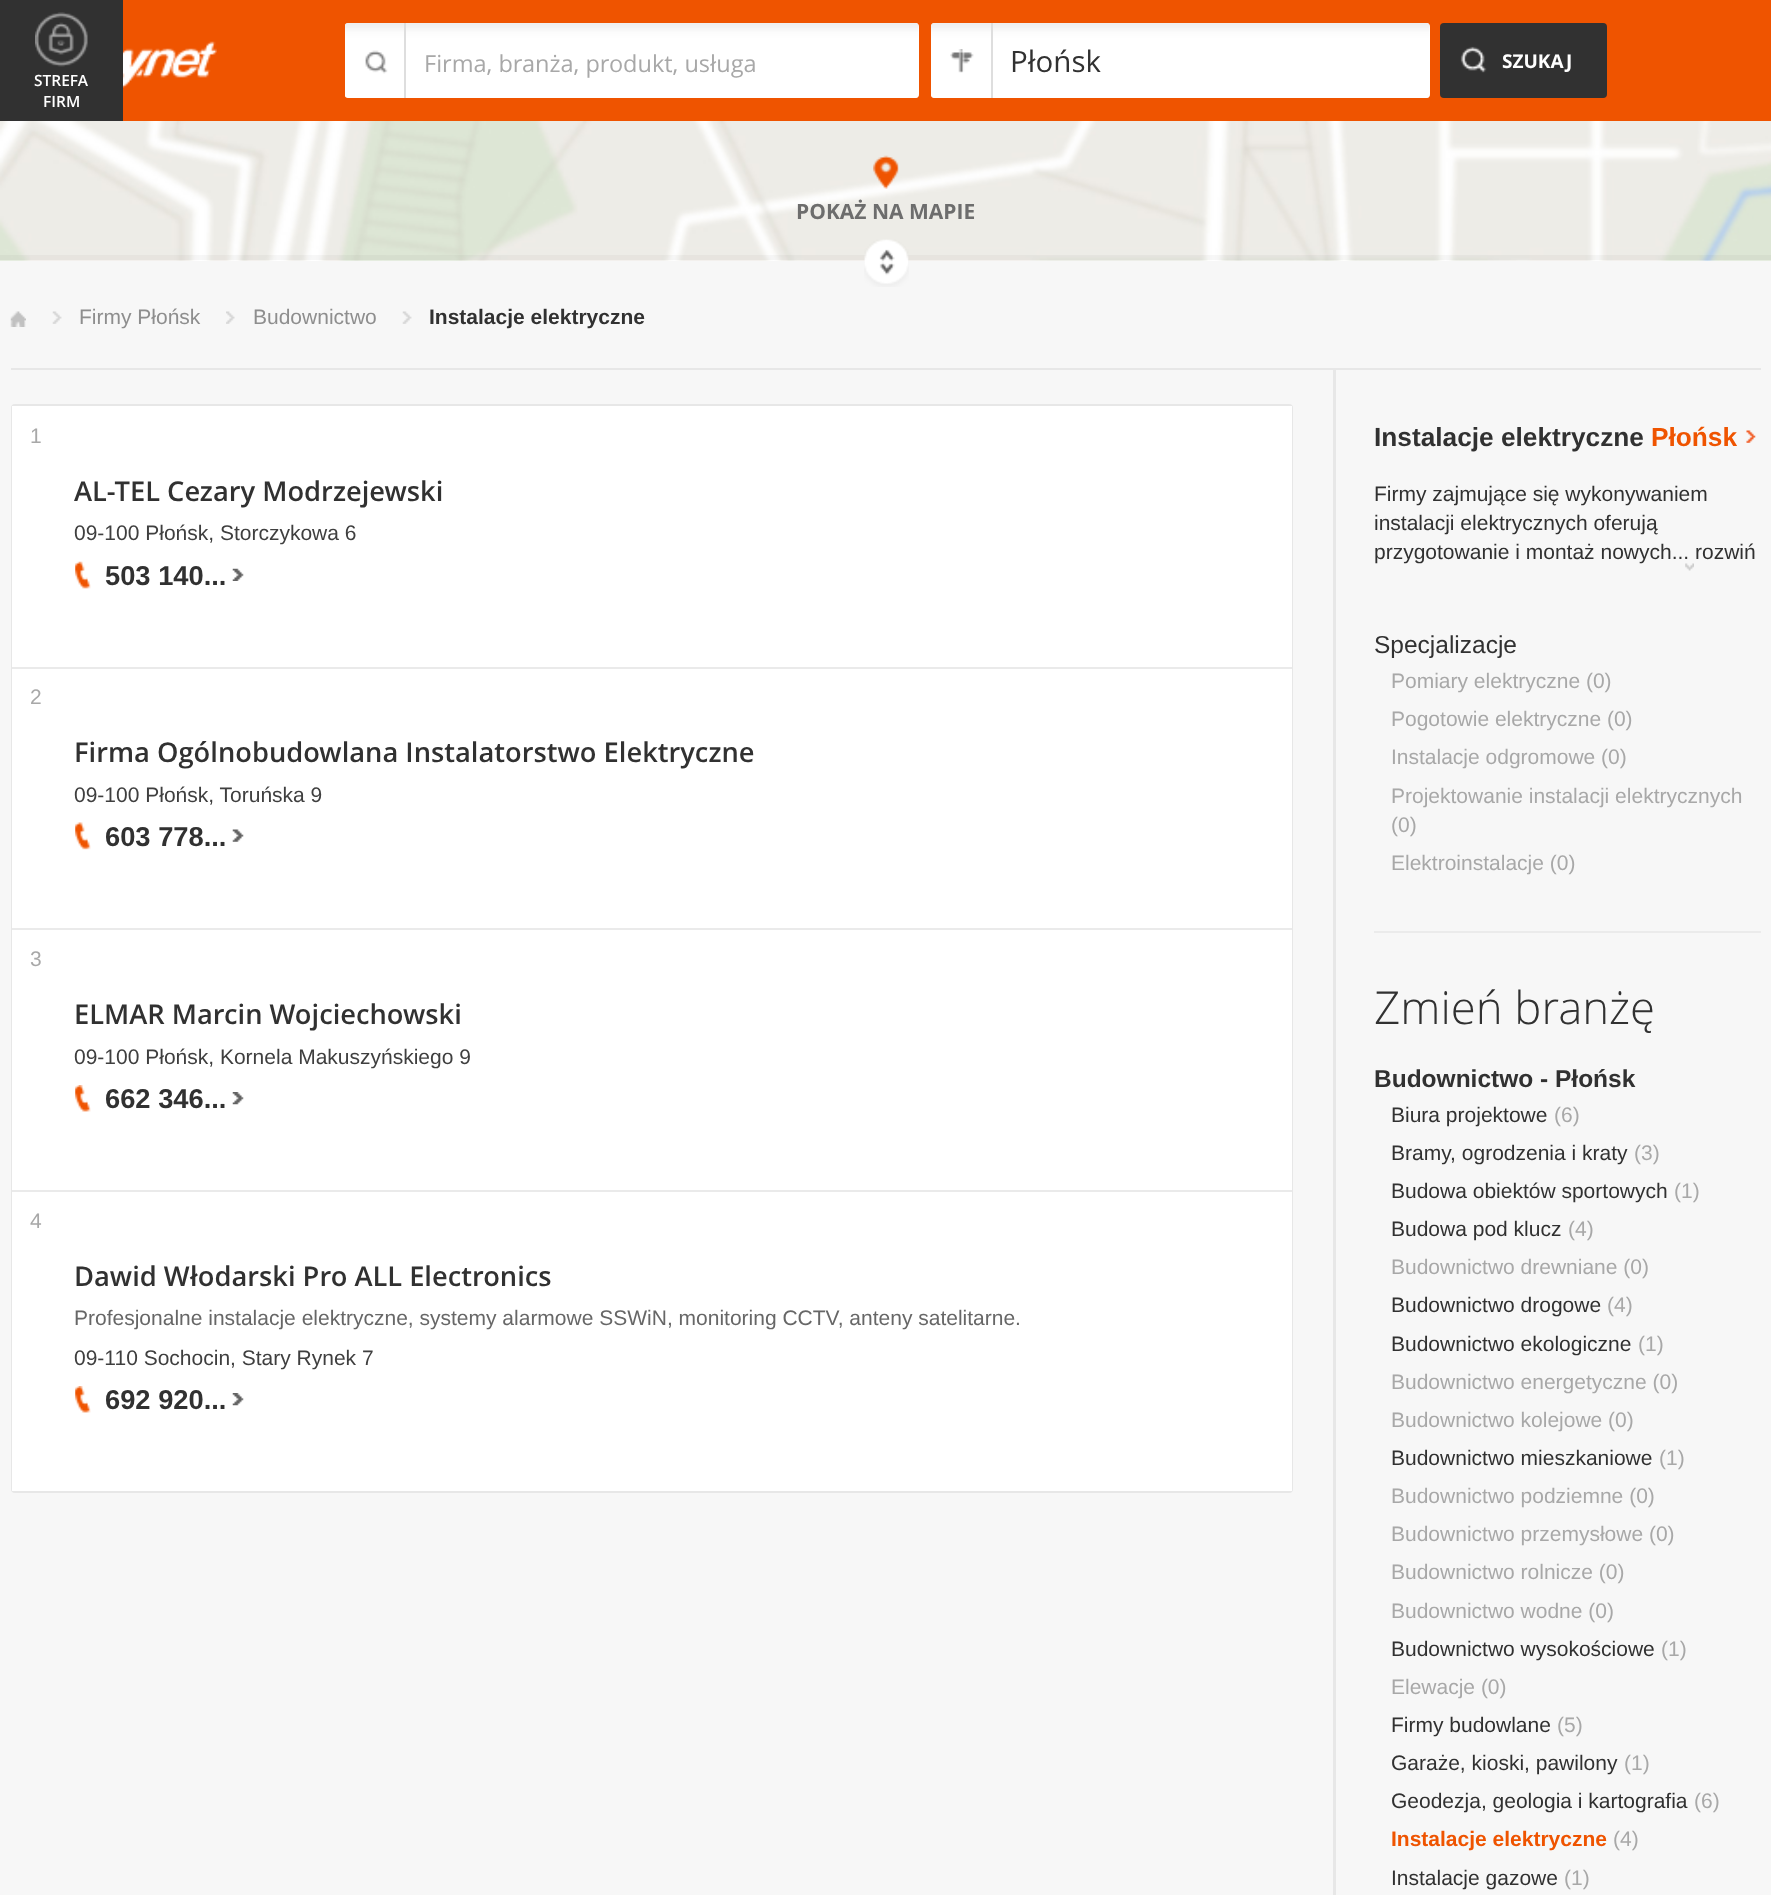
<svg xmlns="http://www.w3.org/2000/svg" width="1771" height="1895">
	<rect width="100%" height="100%" fill="#FFFFFF" />
	<rect x="123" y="0" width="1648" height="121" fill="#EF5400" />
	<image x="123" y="41" width="94" height="47" href="assets/img1.png" />
	<rect x="345" y="23" width="574" height="75" rx="4" fill="#FFFFFF" />
	<image x="345" y="23" width="574" height="75" href="assets/img3.png" />
	<image x="365" y="50" width="23" height="24" href="assets/img2.png" />
	<rect x="404" y="23" width="2" height="75" fill="#DEDEDE" />
	<text x="424" y="72" font-family="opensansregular" font-size="23.5" fill="#A8A8A8">Firma, branża, produkt, usługa</text>
	<rect x="931" y="23" width="499" height="75" rx="4" fill="#FFFFFF" />
	<image x="931" y="23" width="499" height="75" href="assets/img5.png" />
	<image x="950" y="49" width="24" height="24" href="assets/img4.png" />
	<rect x="991" y="23" width="2" height="75" fill="#DEDEDE" />
	<text x="1010" y="72" font-family="opensansregular" font-size="29.5" fill="#313131">Płońsk</text>
	<rect x="1440" y="23" width="167" height="75" rx="4" fill="#313131" />
	<image x="1460" y="46" width="27" height="27" href="assets/img6.png" />
	<text x="1502" y="68" font-family="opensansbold" font-size="19" font-weight="700" fill="#FFFFFF">SZUKAJ</text>
	<rect x="0" y="0" width="123" height="121" fill="#313131" />
	<image x="35" y="12" width="53" height="55" href="assets/img7.png" />
	<g font-family="Open Sans" font-size="15.5" font-weight="600" fill="#FFFFFF">
		<text x="34" y="86">STREFA</text>
		<text x="43" y="107">FIRM</text>
	</g>
	<image x="0" y="121" width="1771" height="140" href="assets/img8.png" />
	<image x="873" y="155" width="26" height="34" href="assets/img9.png" />
	<text x="796" y="219" font-family="opensansbold" font-size="21" font-weight="700" fill="#6D6D6D">POKAŻ NA MAPIE</text>
	<rect x="0" y="255" width="1771" height="5" fill="#000000" fill-opacity="0.03" />
	<rect x="0" y="261" width="1771" height="1634" fill="#F7F7F7" />
	<image x="864" y="239" width="45" height="48" href="assets/img10.png" />
	<rect x="11" y="368" width="1750" height="2" fill="#E7E7E7" />
	<image x="10" y="311" width="16" height="16" href="assets/img11.png" />
	<image x="52" y="311" width="10" height="13" href="assets/img12.png" />
	<text x="79" y="324" font-family="Liberation Sans" font-size="21" fill="#8E8E8E">Firmy Płońsk</text>
	<image x="226" y="311" width="9" height="13" href="assets/img13.png" />
	<text x="253" y="324" font-family="Liberation Sans" font-size="21" fill="#8E8E8E">Budownictwo</text>
	<image x="402" y="311" width="10" height="13" href="assets/img12.png" />
	<text x="429" y="324" font-family="Liberation Sans" font-size="21" font-weight="700" fill="#313131">Instalacje elektryczne</text>
	<rect x="1333" y="370" width="3" height="1525" fill="#E7E7E7" />
	<rect x="12" y="405" width="1280" height="1087" rx="3" fill="none" stroke="#E7E7E7" stroke-width="2" />
	<rect x="12" y="406" width="1280" height="261" fill="#FFFFFF" />
	<text x="30" y="443" font-family="Liberation Sans" font-size="21" fill="#A8A8A8">1</text>
	<text x="74" y="501" font-family="Open Sans" font-size="27.3" font-weight="600" fill="#313131">AL-TEL Cezary Modrzejewski</text>
	<text x="74" y="540" font-family="Liberation Sans" font-size="21" fill="#3F3F3F">09-100 Płońsk, Storczykowa 6</text>
	<image x="75" y="561" width="16" height="28" href="assets/img14.png" />
	<text x="105" y="585" font-family="Liberation Sans" font-size="27.3" font-weight="700" fill="#313131">503 140...</text>
	<image x="232" y="568" width="12" height="13" href="assets/img15.png" />
	<rect x="12" y="669" width="1280" height="259" fill="#FFFFFF" />
	<rect x="12" y="667" width="1280" height="2" fill="#EAEAEA" />
	<text x="30" y="704" font-family="Liberation Sans" font-size="21" fill="#A8A8A8">2</text>
	<text x="74" y="762" font-family="Open Sans" font-size="27.3" font-weight="600" fill="#313131">Firma Ogólnobudowlana Instalatorstwo Elektryczne</text>
	<text x="74" y="802" font-family="Liberation Sans" font-size="21" fill="#3F3F3F">09-100 Płońsk, Toruńska 9</text>
	<image x="75" y="822" width="16" height="28" href="assets/img16.png" />
	<text x="105" y="846" font-family="Liberation Sans" font-size="27.3" font-weight="700" fill="#313131">603 778...</text>
	<image x="232" y="829" width="12" height="13" href="assets/img17.png" />
	<rect x="12" y="930" width="1280" height="260" fill="#FFFFFF" />
	<rect x="12" y="928" width="1280" height="2" fill="#EAEAEA" />
	<text x="30" y="966" font-family="Liberation Sans" font-size="21" fill="#A8A8A8">3</text>
	<text x="74" y="1024" font-family="Open Sans" font-size="27.3" font-weight="600" fill="#313131">ELMAR Marcin Wojciechowski</text>
	<text x="74" y="1064" font-family="Liberation Sans" font-size="21" fill="#3F3F3F">09-100 Płońsk, Kornela Makuszyńskiego 9</text>
	<image x="75" y="1085" width="16" height="27" href="assets/img18.png" />
	<text x="105" y="1108" font-family="Liberation Sans" font-size="27.3" font-weight="700" fill="#313131">662 346...</text>
	<image x="232" y="1092" width="12" height="13" href="assets/img19.png" />
	<rect x="12" y="1192" width="1280" height="299" fill="#FFFFFF" />
	<rect x="12" y="1190" width="1280" height="2" fill="#EAEAEA" />
	<text x="30" y="1228" font-family="Liberation Sans" font-size="21" fill="#A8A8A8">4</text>
	<text x="74" y="1286" font-family="Open Sans" font-size="27.3" font-weight="600" fill="#313131">Dawid Włodarski Pro ALL Electronics</text>
	<text x="74" y="1325" font-family="Liberation Sans" font-size="21" fill="#676767">Profesjonalne instalacje elektryczne, systemy alarmowe SSWiN, monitoring CCTV, anteny satelitarne.</text>
	<text x="74" y="1365" font-family="Liberation Sans" font-size="21" fill="#3F3F3F">09-110 Sochocin, Stary Rynek 7</text>
	<image x="75" y="1386" width="16" height="27" href="assets/img18.png" />
	<text x="105" y="1409" font-family="Liberation Sans" font-size="27.3" font-weight="700" fill="#313131">692 920...</text>
	<image x="232" y="1393" width="12" height="13" href="assets/img19.png" />
	<text x="1374" y="446" font-family="Liberation Sans" font-size="26.25" font-weight="700" fill="#313131">Instalacje elektryczne</text>
	<text x="1651" y="446" font-family="Liberation Sans" font-size="26.25" font-weight="700" fill="#EF5400">Płońsk</text>
	<image x="1746" y="430" width="10" height="13" href="assets/img20.png" />
	<g font-family="Liberation Sans" font-size="21" fill="#313131">
		<text x="1374" y="501">Firmy zajmujące się wykonywaniem</text>
		<text x="1374" y="530">instalacji elektrycznych oferują</text>
		<text x="1374" y="559">przygotowanie i montaż nowych... rozwiń</text>
	</g>
	<image x="1685" y="563" width="9" height="8" href="assets/img21.png" />
	<text x="1374" y="653" font-family="Liberation Sans" font-size="24.5" fill="#313131">Specjalizacje</text>
	<g font-family="Liberation Sans" font-size="21" fill="#A8A8A8">
		<text x="1391" y="688">Pomiary elektryczne (0)</text>
		<text x="1391" y="726">Pogotowie elektryczne (0)</text>
		<text x="1391" y="764">Instalacje odgromowe (0)</text>
		<text x="1391" y="803">Projektowanie instalacji elektrycznych</text>
		<text x="1391" y="832">(0)</text>
		<text x="1391" y="870">Elektroinstalacje (0)</text>
	</g>
	<rect x="1374" y="931" width="387" height="2" fill="#EBEBEB" />
	<text x="1374" y="1024" font-family="Open Sans" font-size="45.5" font-weight="300" fill="#313131">Zmień branżę</text>
	<text x="1374" y="1087" font-family="Liberation Sans" font-size="24.5" font-weight="700" fill="#313131">Budownictwo - Płońsk</text>
	<text x="1391" y="1122" font-family="Liberation Sans" font-size="21" fill="#313131">Biura projektowe</text>
	<text x="1554" y="1122" font-family="Liberation Sans" font-size="21" fill="#A8A8A8">(6)</text>
	<text x="1391" y="1160" font-family="Liberation Sans" font-size="21" fill="#313131">Bramy, ogrodzenia i kraty</text>
	<text x="1634" y="1160" font-family="Liberation Sans" font-size="21" fill="#A8A8A8">(3)</text>
	<text x="1391" y="1198" font-family="Liberation Sans" font-size="21" fill="#313131">Budowa obiektów sportowych</text>
	<text x="1674" y="1198" font-family="Liberation Sans" font-size="21" fill="#A8A8A8">(1)</text>
	<text x="1391" y="1236" font-family="Liberation Sans" font-size="21" fill="#313131">Budowa pod klucz</text>
	<g font-family="Liberation Sans" font-size="21" fill="#A8A8A8">
		<text x="1568" y="1236">(4)</text>
		<text x="1391" y="1274">Budownictwo drewniane (0)</text>
	</g>
	<text x="1391" y="1312" font-family="Liberation Sans" font-size="21" fill="#313131">Budownictwo drogowe</text>
	<text x="1607" y="1312" font-family="Liberation Sans" font-size="21" fill="#A8A8A8">(4)</text>
	<text x="1391" y="1351" font-family="Liberation Sans" font-size="21" fill="#313131">Budownictwo ekologiczne</text>
	<g font-family="Liberation Sans" font-size="21" fill="#A8A8A8">
		<text x="1638" y="1351">(1)</text>
		<text x="1391" y="1389">Budownictwo energetyczne (0)</text>
		<text x="1391" y="1427">Budownictwo kolejowe (0)</text>
	</g>
	<text x="1391" y="1465" font-family="Liberation Sans" font-size="21" fill="#313131">Budownictwo mieszkaniowe</text>
	<g font-family="Liberation Sans" font-size="21" fill="#A8A8A8">
		<text x="1659" y="1465">(1)</text>
		<text x="1391" y="1503">Budownictwo podziemne (0)</text>
		<text x="1391" y="1541">Budownictwo przemysłowe (0)</text>
		<text x="1391" y="1579">Budownictwo rolnicze (0)</text>
		<text x="1391" y="1618">Budownictwo wodne (0)</text>
	</g>
	<text x="1391" y="1656" font-family="Liberation Sans" font-size="21" fill="#313131">Budownictwo wysokościowe</text>
	<g font-family="Liberation Sans" font-size="21" fill="#A8A8A8">
		<text x="1661" y="1656">(1)</text>
		<text x="1391" y="1694">Elewacje (0)</text>
	</g>
	<text x="1391" y="1732" font-family="Liberation Sans" font-size="21" fill="#313131">Firmy budowlane</text>
	<text x="1557" y="1732" font-family="Liberation Sans" font-size="21" fill="#A8A8A8">(5)</text>
	<text x="1391" y="1770" font-family="Liberation Sans" font-size="21" fill="#313131">Garaże, kioski, pawilony</text>
	<text x="1624" y="1770" font-family="Liberation Sans" font-size="21" fill="#A8A8A8">(1)</text>
	<text x="1391" y="1808" font-family="Liberation Sans" font-size="21" fill="#313131">Geodezja, geologia i kartografia</text>
	<text x="1694" y="1808" font-family="Liberation Sans" font-size="21" fill="#A8A8A8">(6)</text>
	<text x="1391" y="1846" font-family="Liberation Sans" font-size="21" font-weight="700" fill="#EF5400">Instalacje elektryczne</text>
	<text x="1613" y="1846" font-family="Liberation Sans" font-size="21" fill="#A8A8A8">(4)</text>
	<text x="1391" y="1885" font-family="Liberation Sans" font-size="21" fill="#313131">Instalacje gazowe</text>
	<text x="1564" y="1885" font-family="Liberation Sans" font-size="21" fill="#A8A8A8">(1)</text>
</svg>
